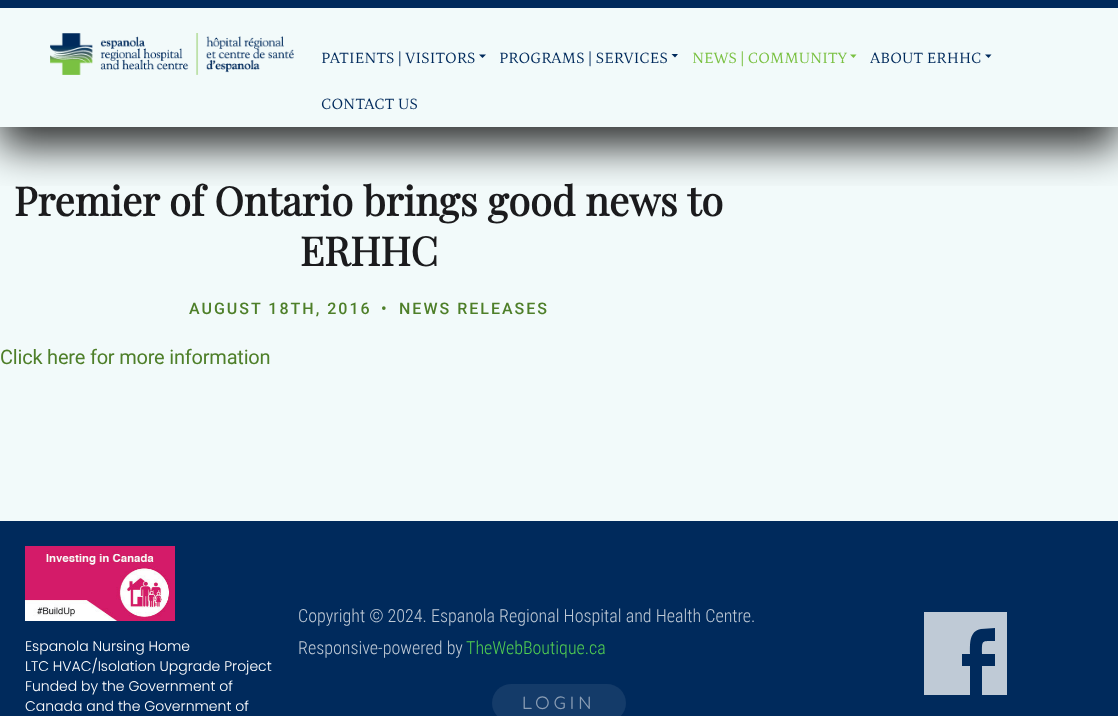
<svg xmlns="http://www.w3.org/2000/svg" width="1118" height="716">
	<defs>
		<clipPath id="clip1"><rect x="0" y="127" width="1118" height="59" /></clipPath>
	</defs>
	<rect width="100%" height="100%" fill="#F2FAFA" />
	<g clip-path="url(#clip1)">
		<rect x="0" y="20" width="1118" height="127" fill="#000000" fill-opacity="0.8" filter="blur(20px)" />
	</g>
	<rect x="0" y="0" width="1118" height="8" fill="#002A5C" />
	<image x="50" y="33" width="244" height="42" href="assets/img1.png" />
	<text x="321" y="63" font-family="Petrona" font-size="16" fill="#002A5C">PATIENTS | VISITORS</text>
	<path d="M479 54.5H486L482.5 58Z" fill="#002A5C" />
	<text x="499" y="63" font-family="Petrona" font-size="16" fill="#002A5C">PROGRAMS | SERVICES</text>
	<path d="M671.5 54H678L675 57.5Z" fill="#002A5C" />
	<text x="692" y="63" font-family="Petrona" font-size="16" fill="#7AC142">NEWS | COMMUNITY</text>
	<path d="M850 54.5H856.5L853.5 58Z" fill="#7AC142" />
	<text x="870" y="63" font-family="Petrona" font-size="16" fill="#002A5C">ABOUT ERHHC</text>
	<path d="M985 54.5H991.5L988.5 58Z" fill="#002A5C" />
	<text x="321" y="109" font-family="Petrona" font-size="16" fill="#002A5C">CONTACT US</text>
	<g font-family="Playfair Display" font-size="40" font-weight="700" fill="#1B1B1D">
		<text x="14" y="216">Premier of Ontario brings good news to</text>
		<text x="300" y="266">ERHHC</text>
	</g>
	<g font-family="Roboto" font-size="16" font-weight="500" letter-spacing="2" fill="#4E7F29">
		<text x="189" y="314">AUGUST 18TH, 2016</text>
		<text x="381" y="314">•</text>
		<text x="399" y="314">NEWS RELEASES</text>
	</g>
	<text x="0" y="364" font-family="Roboto" font-size="20" letter-spacing="-0.2" fill="#4E7F29">Click here for more information</text>
	<rect x="0" y="521" width="1118" height="195" fill="#002A5C" />
	<image x="25" y="546" width="150" height="75" href="assets/img2.png" />
	<g font-family="Poppins" font-size="14" font-weight="300" fill="#FFFFFF">
		<text x="25" y="651">Espanola Nursing Home</text>
		<text x="25" y="671">LTC HVAC/Isolation Upgrade Project</text>
		<text x="25" y="691">Funded by the Government of</text>
		<text x="25" y="711">Canada and the Government of</text>
	</g>
	<g font-family="Roboto Condensed" font-size="18" font-weight="300" fill="#BFCAD6">
		<text x="298" y="622">Copyright © 2024. Espanola Regional Hospital and Health Centre.</text>
		<text x="298" y="654">Responsive-powered by</text>
	</g>
	<text x="466" y="654" font-family="Roboto Condensed" font-size="18" font-weight="300" fill="#51CF51">TheWebBoutique.ca</text>
	<rect x="492" y="684" width="134" height="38" rx="19" fill="#143B69" />
	<text x="522" y="709" font-family="Comfortaa" font-size="16" letter-spacing="4" fill="#8A9DB4">LOGIN</text>
	<path d="M995 628L981 629C969 631 970 644 970 654H962V666H970V695H982V666H995V654H982C982 640 981 641 995 641ZM924 612H1007V695H924Z" fill="#BFCAD6" />
</svg>
